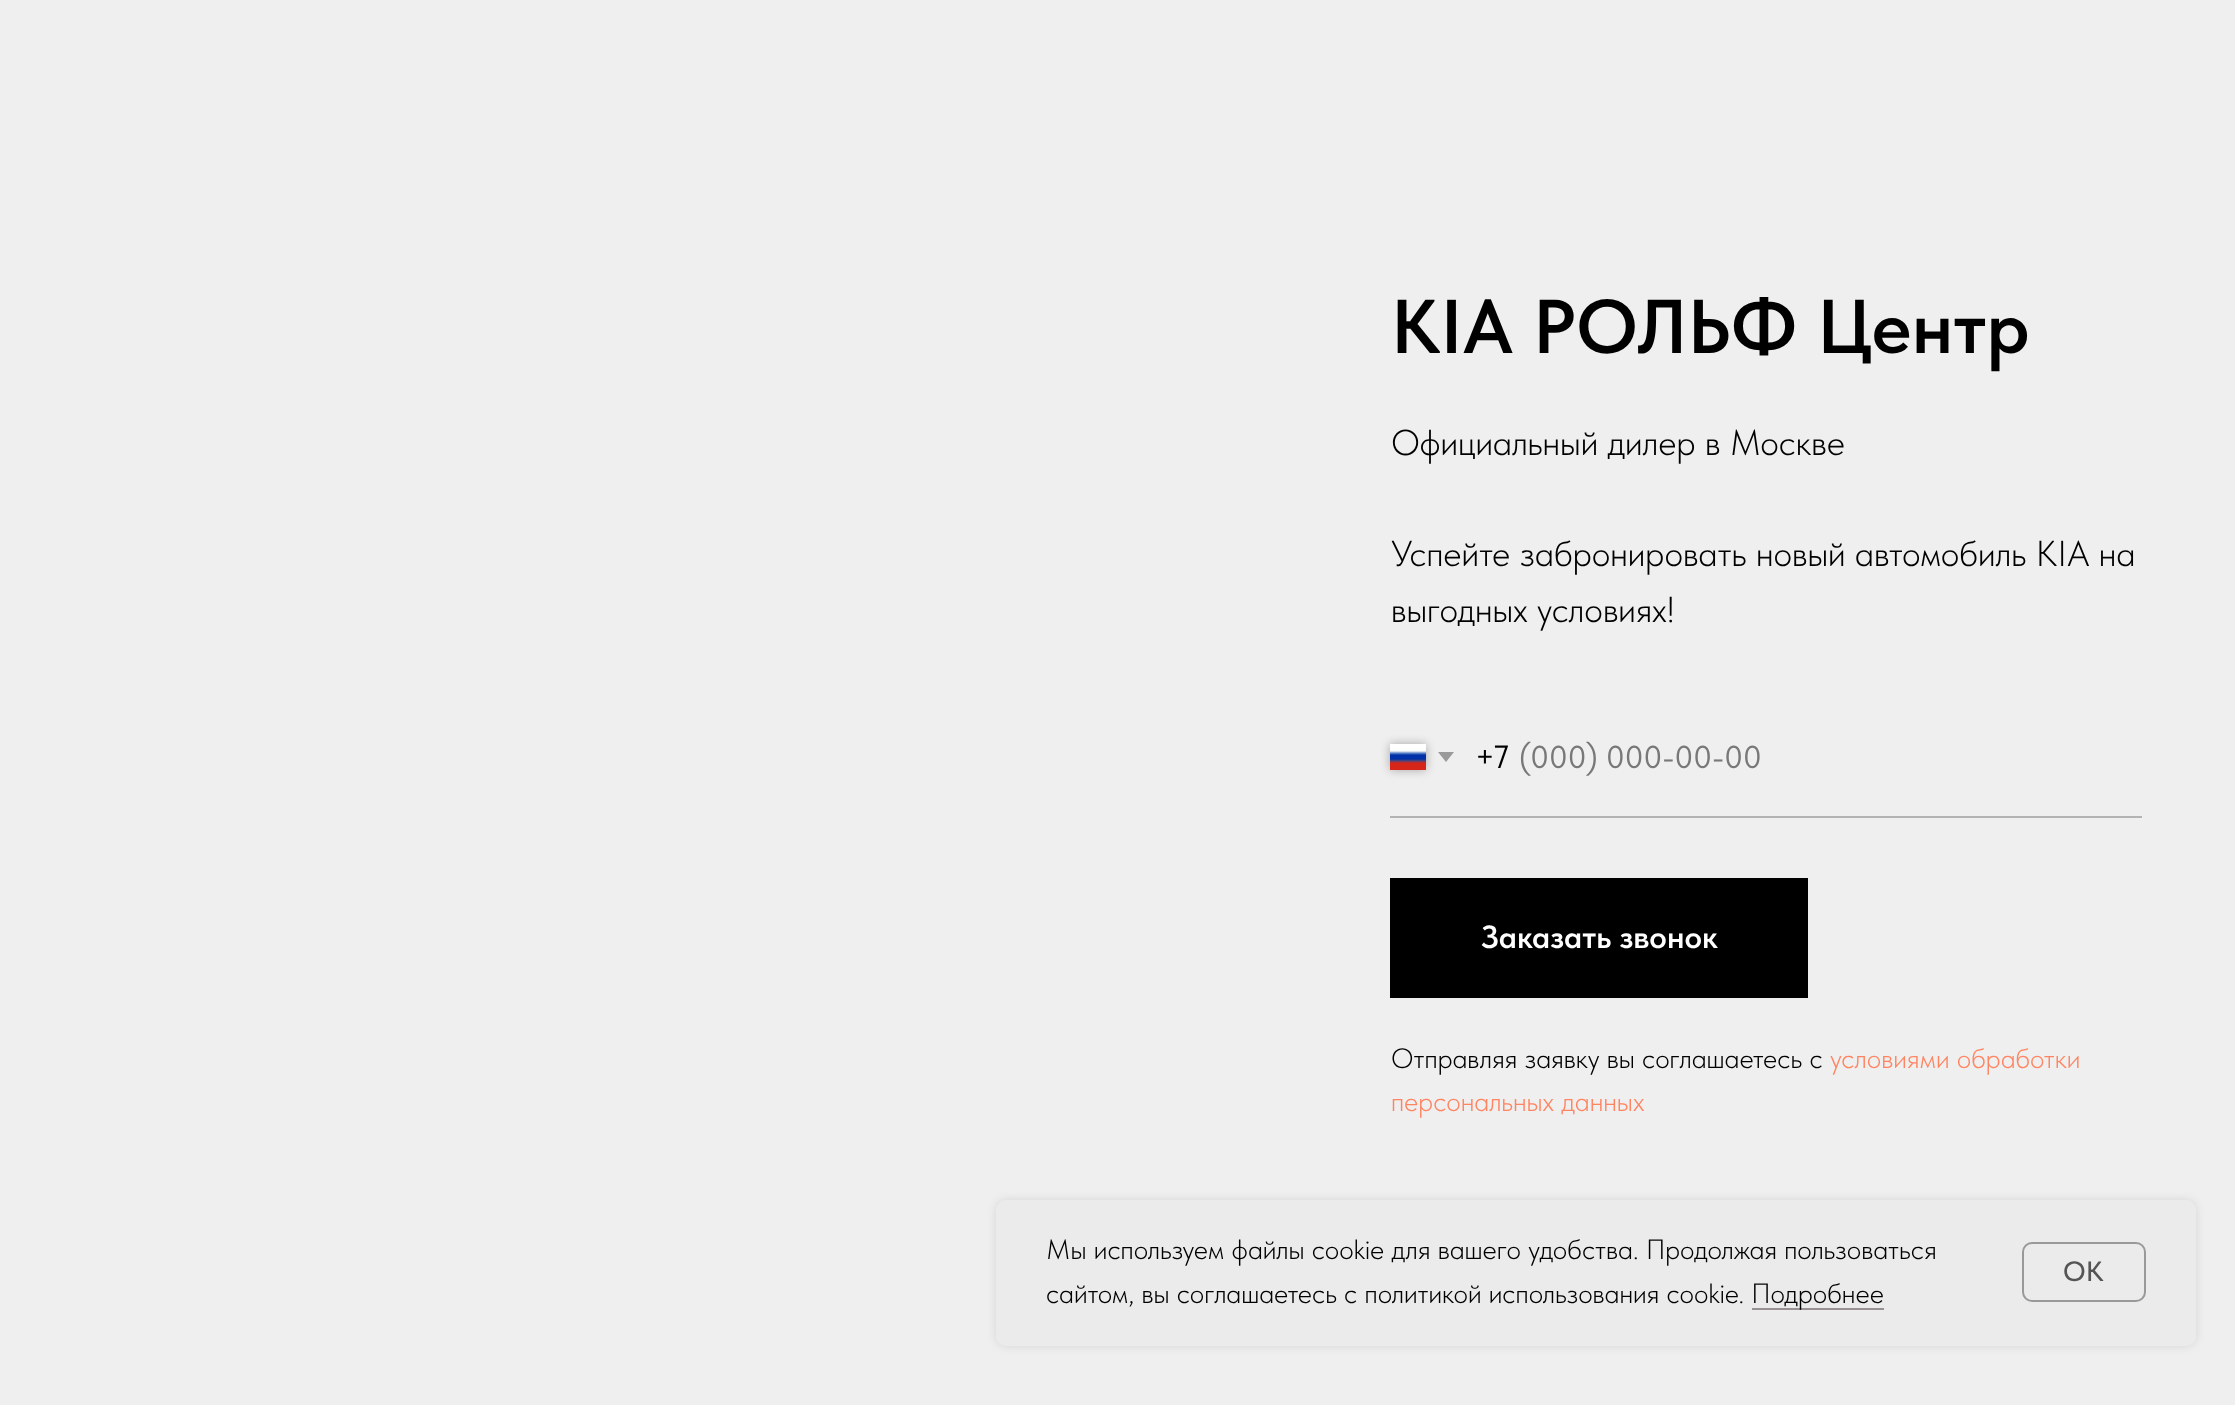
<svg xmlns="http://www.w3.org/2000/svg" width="2235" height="1405">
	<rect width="100%" height="100%" fill="#EFEFEF" />
	<text x="1391" y="353" font-family="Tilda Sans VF" font-size="76" font-weight="600" fill="#000000">KIA РОЛЬФ Центр</text>
	<g font-family="Tilda Sans VF" font-size="36" font-weight="300" fill="#000000">
		<text x="1391" y="455">Официальный дилер в Москве</text>
		<text x="1391" y="566">Успейте забронировать новый автомобиль KIA на</text>
		<text x="1391" y="622">выгодных условиях!</text>
	</g>
	<rect x="1390" y="816" width="752" height="2" fill="#B3B3B3" />
	<rect x="1390" y="744" width="36" height="26" fill="#000000" fill-opacity="0.3" filter="blur(5px)" />
	<image x="1390" y="744" width="36" height="26" href="assets/img1.png" />
	<path d="M1438 752H1454L1446 762Z" fill="#9A9A9A" />
	<text x="1475" y="768" font-family="Tilda Sans VF" font-size="32" fill="#000000">+7</text>
	<text x="1519" y="768" font-family="Tilda Sans VF" font-size="32" fill="#787878">(000) 000-00-00</text>
	<rect x="1390" y="878" width="418" height="120" fill="#000001" />
	<text x="1481" y="948" font-family="Tilda Sans VF" font-size="32" font-weight="600" fill="#FFFFFF">Заказать звонок</text>
	<text x="1391" y="1068" font-family="Tilda Sans VF" font-size="28" font-weight="300" fill="#000000">Отправляя заявку вы соглашаетесь с</text>
	<g font-family="Tilda Sans VF" font-size="28" font-weight="300" fill="#FF8562">
		<text x="1830" y="1068">условиями обработки</text>
		<text x="1391" y="1111">персональных данных</text>
	</g>
	<rect x="996" y="1200" width="1200" height="146" rx="10" fill="#000000" fill-opacity="0.1" filter="blur(5px)" />
	<rect x="996" y="1200" width="1200" height="146" rx="10" fill="#EBEBEB" />
	<g font-family="Tilda Sans VF" font-size="28" font-weight="300" fill="#000000">
		<text x="1046" y="1259">Мы используем файлы cookie для вашего удобства. Продолжая пользоваться</text>
		<text x="1046" y="1303">сайтом, вы соглашаетесь с политикой использования cookie.</text>
	</g>
	<rect x="1752" y="1308" width="132" height="2" fill="#979191" />
	<text x="1751" y="1303" font-family="Tilda Sans VF" font-size="28" font-weight="300" fill="#000000">Подробнее</text>
	<rect x="2023" y="1243" width="122" height="58" rx="9" fill="none" stroke="#999999" stroke-width="2" />
	<text x="2063" y="1281" font-family="Tilda Sans VF" font-size="28" font-weight="500" fill="#555555">OK</text>
</svg>
